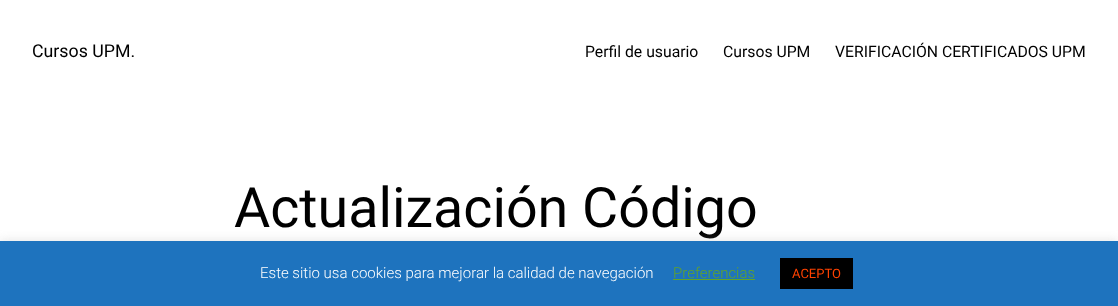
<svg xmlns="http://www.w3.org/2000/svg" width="1118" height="306">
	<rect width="100%" height="100%" fill="#FFFFFF" />
	<text x="32" y="57" font-family="Roboto" font-size="17.75" fill="#000000">Cursos UPM.</text>
	<g font-family="Roboto" font-size="15.75" fill="#000000">
		<text x="585" y="57">Perfil de usuario</text>
		<text x="723" y="57">Cursos UPM</text>
		<text x="835" y="57">VERIFICACIÓN CERTIFICADOS UPM</text>
	</g>
	<text x="234" y="227" font-family="Roboto" font-size="55.6" fill="#000000">Actualización Código</text>
	<rect x="0" y="240" width="1118" height="65" fill="#ACABAB" fill-opacity="0.3" filter="blur(5px)" />
	<rect x="0" y="241" width="1118" height="65" fill="#1E73BE" />
	<text x="260" y="278" font-family="Roboto" font-size="15" font-weight="300" fill="#FFFFFF">Este sitio usa cookies para mejorar la calidad de navegación</text>
	<text x="673" y="278" font-family="Roboto" font-size="15" font-weight="300" fill="#62A329">Preferencias</text>
	<rect x="673" y="279" width="82" height="1" fill="#62A329" />
	<rect x="780" y="258" width="73" height="31" fill="#000000" />
	<text x="792" y="278" font-family="Roboto" font-size="13" fill="#FF4200">ACEPTO</text>
</svg>
